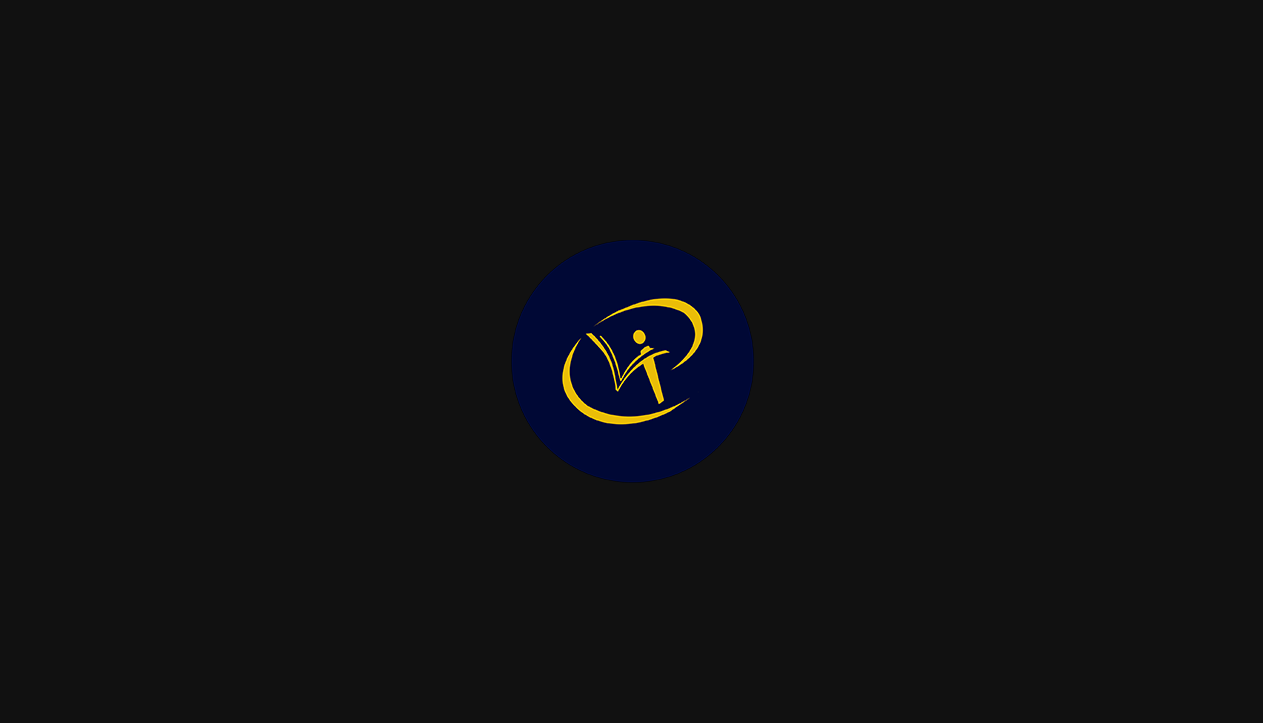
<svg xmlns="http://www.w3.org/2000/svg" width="1263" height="723">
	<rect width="100%" height="100%" fill="#111111" />
	<image x="511" y="240" width="243" height="243" href="assets/img1.png" />
</svg>
